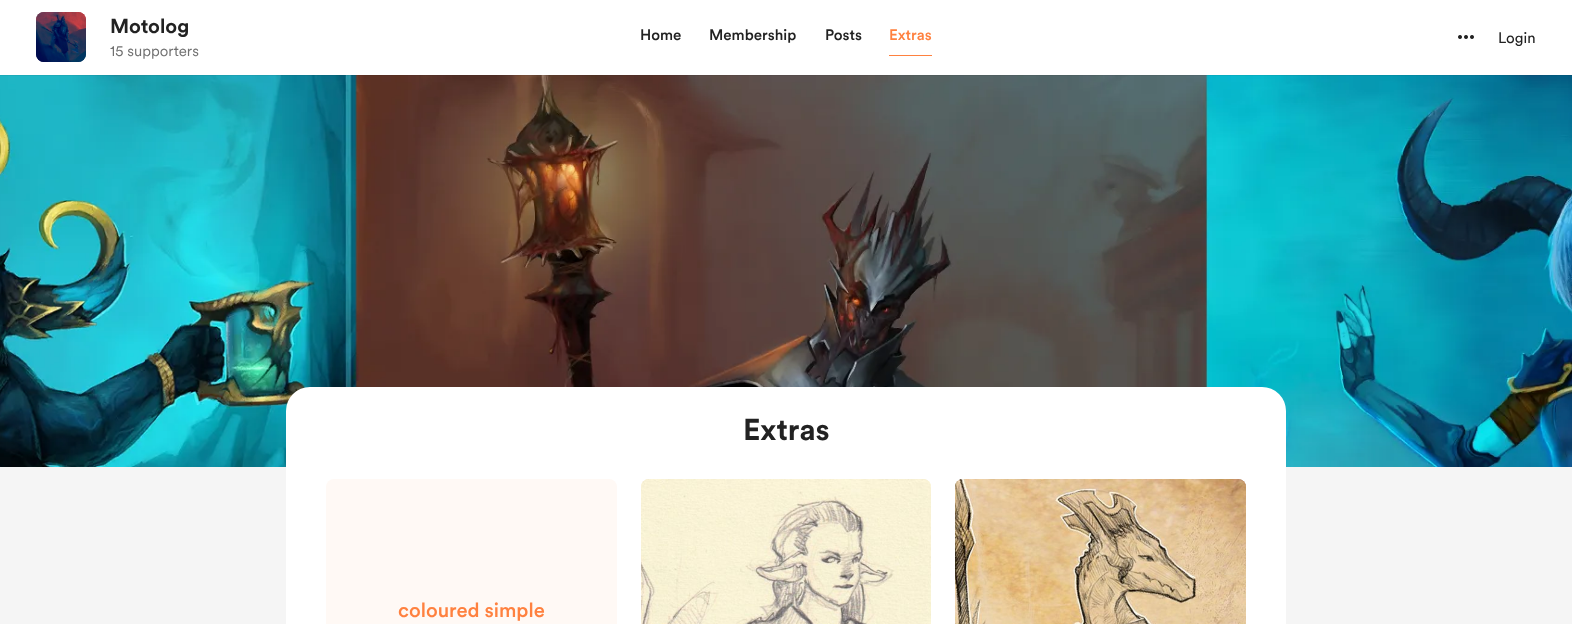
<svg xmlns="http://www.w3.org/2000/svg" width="1572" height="624">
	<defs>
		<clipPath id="clip1"><rect x="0" y="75" width="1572" height="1" /></clipPath>
	</defs>
	<rect width="100%" height="100%" fill="#FFFFFF" />
	<image x="0" y="75" width="1572" height="392" href="assets/img4.png" />
	<g clip-path="url(#clip1)">
		<rect x="0" y="1" width="1572" height="75" fill="#000000" fill-opacity="0.06" filter="blur(0.5px)" />
	</g>
	<image x="36" y="12" width="50" height="50" href="assets/img1.png" />
	<image x="36" y="12" width="50" height="50" href="assets/img2.png" />
	<text x="110" y="33" font-family="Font" font-size="20" font-weight="700" fill="#222222">Motolog</text>
	<text x="110" y="56" font-family="Font" font-size="15" fill="#717171">15 supporters</text>
	<g font-family="Font" font-size="15" font-weight="500" fill="#222222">
		<text x="640" y="40">Home</text>
		<text x="709" y="40">Membership</text>
		<text x="825" y="40">Posts</text>
	</g>
	<text x="889" y="40" font-family="Font" font-size="15" font-weight="500" fill="#FF813F">Extras</text>
	<rect x="889" y="55" width="43" height="1" fill="#FF813F" />
	<image x="1458" y="35" width="16" height="4" href="assets/img3.png" />
	<text x="1498" y="43" font-family="'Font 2'" font-size="15" fill="#222222">Login</text>
	<rect x="0" y="467" width="1572" height="157" fill="#F5F5F5" />
	<rect x="286" y="387" width="1000" height="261" rx="24" fill="#FFFFFF" />
	<text x="743" y="440" font-family="Font" font-size="30" font-weight="700" fill="#222222">Extras</text>
	<rect x="326" y="479" width="291" height="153" rx="8" fill="#FFF9F5" />
	<text x="398" y="617" font-family="Font" font-size="20" font-weight="500" fill="#FF813F">coloured simple</text>
	<image x="641" y="479" width="290" height="145" href="assets/img5.png" />
	<image x="641" y="479" width="290" height="7" href="assets/img6.png" />
	<image x="955" y="479" width="291" height="145" href="assets/img7.png" />
	<image x="955" y="479" width="291" height="8" href="assets/img8.png" />
</svg>
